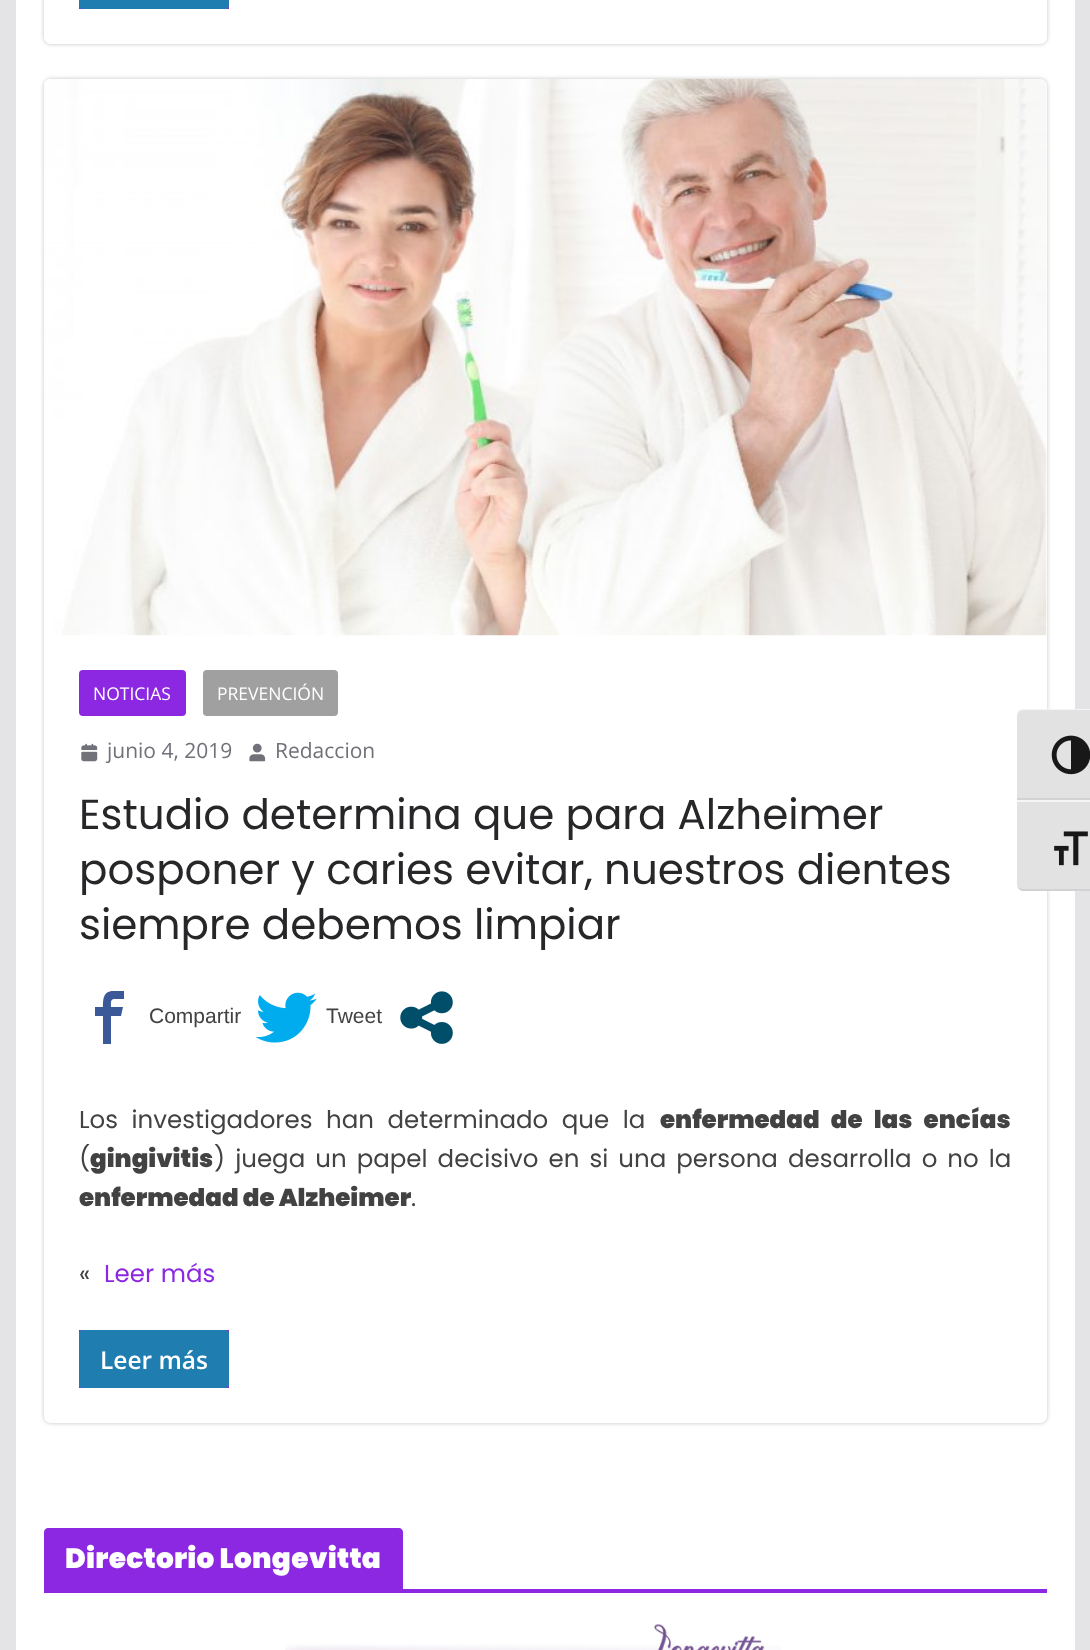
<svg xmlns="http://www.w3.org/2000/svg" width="1090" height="1650">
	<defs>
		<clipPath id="clip1"><path d="M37 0H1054V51H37ZM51-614H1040C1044-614 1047-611 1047-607V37C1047 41 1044 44 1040 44H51C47 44 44 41 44 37V-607C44-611 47-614 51-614Z" clip-rule="evenodd" /></clipPath>
		<clipPath id="clip2"><path d="M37 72H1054V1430H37ZM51 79H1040C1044 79 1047 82 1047 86V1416C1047 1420 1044 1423 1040 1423H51C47 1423 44 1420 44 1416V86C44 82 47 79 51 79Z" clip-rule="evenodd" /></clipPath>
	</defs>
	<rect width="100%" height="100%" fill="#E4E4E7" />
	<rect x="16" y="0" width="1059" height="1650" fill="#FFFFFF" />
	<g clip-path="url(#clip1)">
		<rect x="44" y="-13" width="1003" height="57" rx="7" fill="#000000" fill-opacity="0.24" filter="blur(2px)" />
	</g>
	<rect x="79" y="5" width="150" height="4" fill="#8C28E2" />
	<rect x="79" y="-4" width="150" height="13" rx="4" fill="#207DAF" />
	<g clip-path="url(#clip2)">
		<rect x="44" y="79" width="1003" height="1344" rx="7" fill="#000000" fill-opacity="0.24" filter="blur(2px)" />
	</g>
	<image x="44" y="79" width="1003" height="557" href="assets/img1.png" />
	<rect x="79" y="670" width="107" height="46" rx="4" fill="#8C28E2" />
	<text x="93" y="700" font-family="Open Sans" font-size="17.5" fill="#FFFFFF">NOTICIAS</text>
	<rect x="203" y="670" width="135" height="46" rx="4" fill="#A0A0A0" />
	<text x="217" y="700" font-family="Open Sans" font-size="17.5" fill="#FFFFFF">PREVENCIÓN</text>
	<image x="81" y="743" width="17" height="19" href="assets/img2.png" />
	<text x="107" y="758" font-family="Open Sans" font-size="21" fill="#71717A">junio 4, 2019</text>
	<image x="249" y="743" width="17" height="19" href="assets/img3.png" />
	<text x="275" y="758" font-family="Open Sans" font-size="21" fill="#71717A">Redaccion</text>
	<g font-family="Poppins" font-size="42" fill="#27272A">
		<text x="79" y="829">Estudio determina que para Alzheimer</text>
		<text x="79" y="884">posponer y caries evitar, nuestros dientes</text>
		<text x="79" y="939">siempre debemos limpiar</text>
	</g>
	<path d="M113 991C103 991 103 1000 103 1007H95V1016H103V1044H111V1016H121L123 1007H111C111 1003 110 999 115 999H124V991Z" fill="#3B5998" />
	<text x="149" y="1023" font-family="Liberation Sans" font-size="21" fill="#424242">Compartir</text>
	<image x="256" y="992" width="61" height="51" href="assets/img4.png" />
	<text x="326" y="1023" font-family="Liberation Sans" font-size="21" fill="#424242">Tweet</text>
	<image x="400" y="991" width="53" height="53" href="assets/img5.png" />
	<text x="79" y="1128" word-spacing="7" font-family="Poppins" font-size="24.5" fill="#424242">Los investigadores han determinado que la</text>
	<text x="660" y="1128" word-spacing="7" font-family="Poppins" font-size="24.5" font-weight="900" fill="#424242">enfermedad de las encías</text>
	<text x="79" y="1167" font-family="Poppins" font-size="24.5" fill="#424242">(</text>
	<text x="90" y="1167" font-family="Poppins" font-size="24.5" font-weight="900" fill="#424242">gingivitis</text>
	<text x="214" y="1167" word-spacing="3.5" font-family="Poppins" font-size="24.5" fill="#424242">) juega un papel decisivo en si una persona desarrolla o no la</text>
	<text x="79" y="1206" font-family="Poppins" font-size="24.5" font-weight="900" fill="#424242">enfermedad de Alzheimer</text>
	<g font-family="Poppins" font-size="24.5" fill="#424242">
		<text x="411" y="1206">.</text>
		<text x="79" y="1282">«</text>
	</g>
	<text x="104" y="1282" font-family="Poppins" font-size="24.5" fill="#8C28E2">Leer más</text>
	<rect x="79" y="1330" width="150" height="58" fill="#8C28E2" />
	<rect x="79" y="1330" width="150" height="58" rx="4" fill="#207DAF" />
	<text x="100" y="1369" font-family="Open Sans" font-size="24.5" font-weight="600" fill="#FFFFFF">Leer más</text>
	<rect x="44" y="1589" width="1003" height="4" fill="#8C28E2" />
	<path d="M48 1528H399C401 1528 403 1530 403 1532V1589H44V1532C44 1530 46 1528 48 1528Z" fill="#8C28E2" />
	<text x="65" y="1568" font-family="Poppins" font-size="28" font-weight="900" letter-spacing="0.25" fill="#FFFFFF">Directorio Longevitta</text>
	<image x="285" y="1624" width="496" height="26" href="assets/img6.png" />
	<path d="M1024 709H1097V800H1017V716C1017 712 1020 709 1024 709Z" fill="#E2E2E2" />
	<path d="M1024 709C1020 709 1017 712 1017 716C1017 713 1020 710 1024 710H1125V709Z" fill="#F5F5F5" />
	<rect x="1017" y="798" width="73" height="2" fill="#D2D2D2" />
	<image x="1051" y="735" width="39" height="40" href="assets/img7.png" />
	<path d="M1017 800H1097V891H1024C1020 891 1017 888 1017 884Z" fill="#E2E2E2" />
	<rect x="1017" y="800" width="73" height="2" fill="#F5F5F5" />
	<path d="M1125 891V889H1024C1020 889 1017 887 1017 884C1017 887 1019 890 1022 891Z" fill="#D2D2D2" />
	<image x="1054" y="831" width="34" height="35" href="assets/img8.png" />
</svg>
